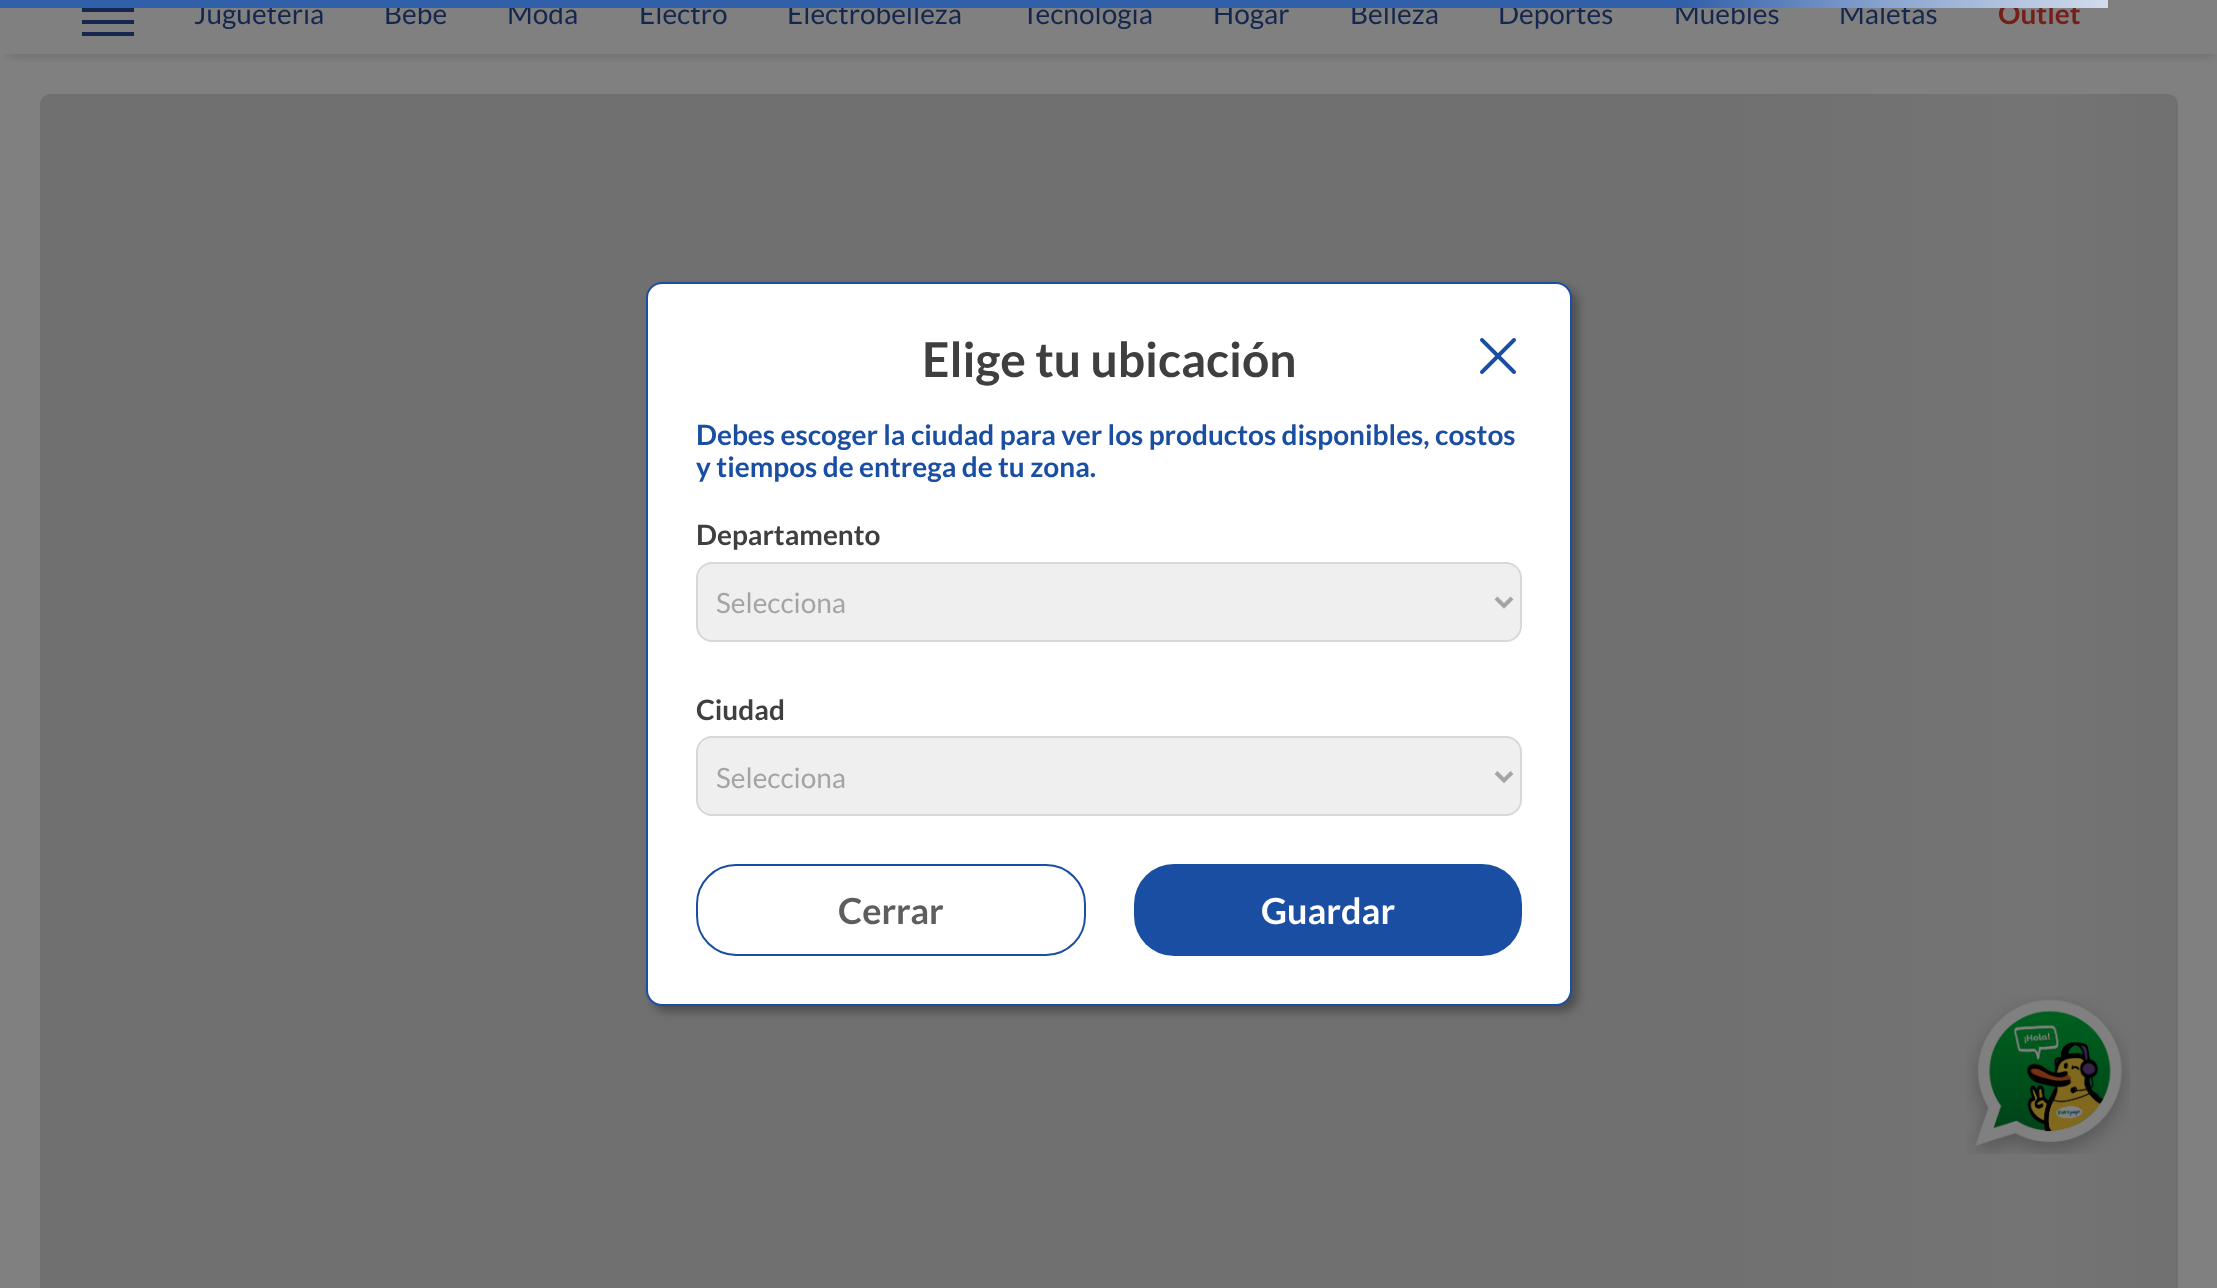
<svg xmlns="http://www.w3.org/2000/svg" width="2217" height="1288">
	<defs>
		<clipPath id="clip1"><rect x="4" y="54" width="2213" height="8" /></clipPath>
		<linearGradient id="g1" gradientUnits="userSpaceOnUse" x1="0" y1="4" x2="2107" y2="4"><stop offset="0.8" stop-color="#3160AB" /><stop offset="0.9" stop-color="#8DA7D1" /><stop offset="1" stop-color="#D1DCEC" /></linearGradient>
		<linearGradient id="g2" gradientUnits="userSpaceOnUse" x1="40" y1="738" x2="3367" y2="738"><stop offset="0" stop-color="#707070" /><stop offset="0.5" stop-color="#707070" /><stop offset="0.6" stop-color="#747474" /><stop offset="0.65" stop-color="#707070" /><stop offset="1" stop-color="#707070" /></linearGradient>
	</defs>
	<rect width="100%" height="100%" fill="#808080" />
	<g clip-path="url(#clip1)">
		<rect x="8" y="-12" width="2206" height="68" fill="#000000" fill-opacity="0.14" filter="blur(6px)" />
	</g>
	<g font-family="Lato" font-size="28" fill="#15274F">
		<text x="194" y="24">Jugueteria</text>
		<text x="384" y="24">Bebé</text>
		<text x="507" y="24">Moda</text>
		<text x="639" y="24">Electro</text>
		<text x="787" y="24">Electrobelleza</text>
		<text x="1022" y="24">Tecnología</text>
		<text x="1213" y="24">Hogar</text>
		<text x="1350" y="24">Belleza</text>
		<text x="1498" y="24">Deportes</text>
		<text x="1674" y="24">Muebles</text>
		<text x="1839" y="24">Maletas</text>
	</g>
	<text x="1998" y="24" font-family="Lato" font-size="28" font-weight="700" fill="#751F19">Outlet</text>
	<rect x="0" y="0" width="2108" height="8" fill="url(#g1)" />
	<rect x="82" y="8" width="52" height="4" fill="#15274F" />
	<rect x="82" y="20" width="52" height="4" fill="#15274F" />
	<rect x="82" y="32" width="52" height="4" fill="#15274F" />
	<rect x="40" y="94" width="2138" height="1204" rx="10" fill="url(#g2)" />
	<rect x="652" y="288" width="926" height="724" rx="16" fill="#000000" fill-opacity="0.3" filter="blur(5px)" />
	<rect x="647" y="283" width="924" height="722" rx="15" fill="#FFFFFF" stroke="#1A4EA3" stroke-width="2" />
	<image x="1480" y="338" width="36" height="36" href="assets/img1.png" />
	<text x="922" y="377" font-family="Lato" font-size="48" font-weight="700" fill="#3F3F40">Elige tu ubicación</text>
	<g font-family="Lato" font-size="28" font-weight="700" fill="#1A4EA2">
		<text x="696" y="445">Debes escoger la ciudad para ver los productos disponibles, costos</text>
		<text x="696" y="477">y tiempos de entrega de tu zona.</text>
	</g>
	<text x="696" y="545" font-family="Lato" font-size="28" font-weight="700" fill="#3F3F40">Departamento</text>
	<rect x="697" y="563" width="824" height="78" rx="15" fill="#EFEFEF" stroke="#D8D8D8" stroke-width="2" />
	<path d="M1496 598L1504 606L1512 598" fill="none" stroke="#A4A4A4" stroke-width="4" />
	<text x="716" y="613" font-family="Lato" font-size="28" fill="#A4A4A4">Selecciona</text>
	<text x="696" y="720" font-family="Lato" font-size="28" font-weight="700" fill="#3F3F40">Ciudad</text>
	<rect x="697" y="737" width="824" height="78" rx="15" fill="#EFEFEF" stroke="#D8D8D8" stroke-width="2" />
	<path d="M1496 772.5L1504 780.5L1512 772.5" fill="none" stroke="#A4A4A4" stroke-width="4" />
	<text x="716" y="788" font-family="Lato" font-size="28" fill="#A4A4A4">Selecciona</text>
	<rect x="697" y="865" width="388" height="90" rx="39" fill="none" stroke="#1A4EA2" stroke-width="2" />
	<text x="838" y="924" font-family="Lato" font-size="36" font-weight="700" fill="#5E5E5E">Cerrar</text>
	<rect x="1134" y="864" width="388" height="92" rx="40" fill="#1A4EA2" />
	<text x="1261" y="924" font-family="Lato" font-size="36" font-weight="700" fill="#FFFFFF">Guardar</text>
	<image x="1966" y="996" width="164" height="158" href="assets/img2.png" />
</svg>
